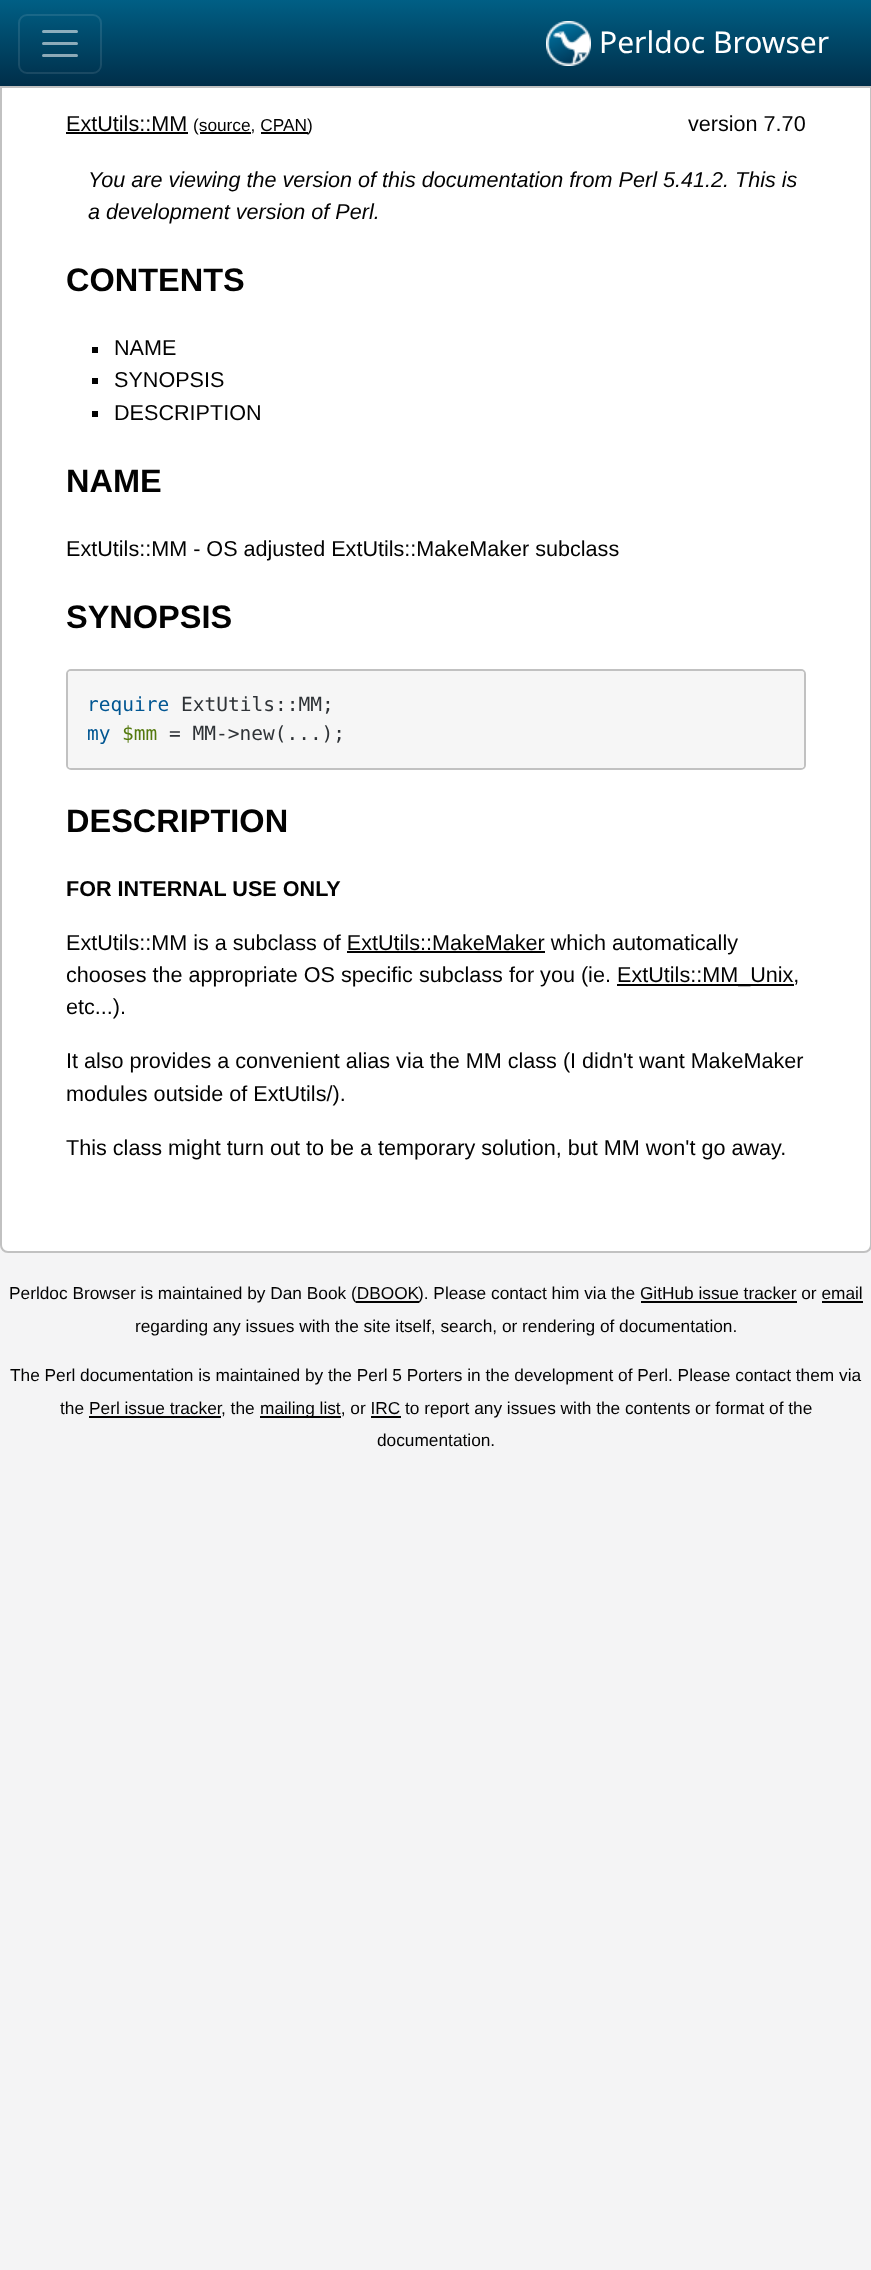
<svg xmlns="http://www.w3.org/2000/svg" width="871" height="2270">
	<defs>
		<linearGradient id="g1" gradientUnits="userSpaceOnUse" x1="436" y1="0" x2="436" y2="86"><stop offset="0" stop-color="#005F85" /><stop offset="1" stop-color="#002E49" /></linearGradient>
	</defs>
	<rect width="100%" height="100%" fill="#F4F4F5" />
	<rect x="0" y="0" width="871" height="86" fill="url(#g1)" />
	<rect x="19" y="15" width="82" height="58" rx="8" fill="none" stroke="#FFFFFF" stroke-opacity="0.1" stroke-width="2" />
	<path d="M43.5 31.5H76.5M43.5 43.5H76.5M43.5 55.5H76.5" fill="none" stroke="#FFFFFF" stroke-opacity="0.55" stroke-width="3" stroke-linecap="round" />
	<image x="546" y="21" width="45" height="45" href="assets/img1.png" />
	<text x="599" y="53" font-family="Noto Sans" font-size="30" fill="#FFFFFF">Perldoc Browser</text>
	<path d="M1 87H871V1245C871 1249 868 1252 864 1252H8C4 1252 1 1249 1 1245Z" fill="#FFFFFF" stroke="#C1C1C1" stroke-width="2" />
	<text x="66" y="131" font-family="Liberation Sans" font-size="21.6" fill="#020202">ExtUtils::MM</text>
	<rect x="66" y="132" width="122" height="2" fill="#020202" />
	<text x="193" y="131" font-family="Liberation Sans" font-size="17.3" fill="#020202">(source, CPAN</text>
	<rect x="200" y="132" width="51" height="2" fill="#020202" />
	<rect x="261" y="132" width="47" height="2" fill="#020202" />
	<text x="307" y="131" font-family="Liberation Sans" font-size="17.3" fill="#020202">)</text>
	<text x="688" y="131" font-family="Liberation Sans" font-size="21.6" fill="#020202">version 7.70</text>
	<g font-family="Liberation Sans" font-size="21.6" font-style="italic" fill="#020202">
		<text x="88" y="187">You are viewing the version of this documentation from Perl 5.41.2.</text>
		<text x="735" y="187">This is</text>
		<text x="88" y="219">a development version of Perl.</text>
	</g>
	<text x="66" y="291" font-family="Liberation Sans" font-size="32.5" font-weight="700" fill="#020202">CONTENTS</text>
	<rect x="92" y="347" width="6" height="6" fill="#020202" />
	<text x="114" y="355" font-family="Liberation Sans" font-size="21.6" fill="#020202">NAME</text>
	<rect x="92" y="378" width="6" height="6" fill="#020202" />
	<text x="114" y="387" font-family="Liberation Sans" font-size="21.6" fill="#020202">SYNOPSIS</text>
	<rect x="92" y="411" width="6" height="6" fill="#020202" />
	<text x="114" y="420" font-family="Liberation Sans" font-size="21.6" fill="#020202">DESCRIPTION</text>
	<text x="66" y="492" font-family="Liberation Sans" font-size="32.5" font-weight="700" fill="#020202">NAME</text>
	<text x="66" y="556" font-family="Liberation Sans" font-size="21.6" fill="#020202">ExtUtils::MM - OS adjusted ExtUtils::MakeMaker subclass</text>
	<text x="66" y="628" font-family="Liberation Sans" font-size="32.5" font-weight="700" fill="#020202">SYNOPSIS</text>
	<rect x="67" y="670" width="738" height="99" rx="4" fill="none" stroke="#C1C1C1" stroke-width="2" />
	<rect x="68" y="671" width="736" height="97" rx="3" fill="#F6F6F6" />
	<text x="87" y="711" font-family="DejaVu Sans Mono" font-size="19.5" fill="#015692">require</text>
	<text x="181" y="711" font-family="DejaVu Sans Mono" font-size="19.5" fill="#2F3337">ExtUtils::MM;</text>
	<text x="87" y="740" font-family="DejaVu Sans Mono" font-size="19.5" fill="#015692">my</text>
	<text x="122" y="740" font-family="DejaVu Sans Mono" font-size="19.5" fill="#54790D">$mm</text>
	<text x="169" y="740" font-family="DejaVu Sans Mono" font-size="19.5" fill="#2F3337">= MM-&gt;new(...);</text>
	<text x="66" y="832" font-family="Liberation Sans" font-size="32.5" font-weight="700" fill="#020202">DESCRIPTION</text>
	<text x="66" y="896" font-family="Liberation Sans" font-size="21.6" font-weight="700" fill="#020202">FOR INTERNAL USE ONLY</text>
	<text x="66" y="950" font-family="Liberation Sans" font-size="21.6" fill="#020202">ExtUtils::MM is a subclass of ExtUtils::MakeMaker which automatically</text>
	<rect x="347" y="951" width="198" height="2" fill="#020202" />
	<text x="66" y="982" font-family="Liberation Sans" font-size="21.6" fill="#020202">chooses the appropriate OS specific subclass for you (ie.</text>
	<rect x="617" y="984" width="177" height="2" fill="#020202" />
	<g font-family="Liberation Sans" font-size="21.6" fill="#020202">
		<text x="617" y="982">ExtUtils::MM_Unix,</text>
		<text x="66" y="1014">etc...).</text>
		<text x="66" y="1068">It also provides a convenient alias via the MM class (I didn't want MakeMaker</text>
		<text x="66" y="1101">modules outside of ExtUtils/).</text>
		<text x="66" y="1155">This class might turn out to be a temporary solution, but MM won't go away.</text>
	</g>
	<text x="9" y="1299" font-family="Liberation Sans" font-size="17.3" fill="#020202">Perldoc Browser is maintained by Dan Book (DBOOK</text>
	<rect x="356" y="1301" width="63" height="2" fill="#020202" />
	<text x="418" y="1299" font-family="Liberation Sans" font-size="17.3" fill="#020202">). Please contact him via the GitHub issue tracker or email</text>
	<rect x="641" y="1301" width="156" height="2" fill="#020202" />
	<rect x="822" y="1301" width="41" height="2" fill="#020202" />
	<g font-family="Liberation Sans" font-size="17.3" fill="#020202">
		<text x="135" y="1332">regarding any issues with the site itself, search, or rendering of documentation.</text>
		<text x="10" y="1381">The Perl documentation is maintained by the Perl 5 Porters in the development of Perl. Please contact them via</text>
		<text x="60" y="1414">the</text>
		<text x="89" y="1414">Perl issue tracker</text>
	</g>
	<rect x="89" y="1416" width="132" height="2" fill="#020202" />
	<text x="221" y="1414" font-family="Liberation Sans" font-size="17.3" fill="#020202">, the</text>
	<rect x="260" y="1416" width="81" height="2" fill="#020202" />
	<text x="260" y="1414" font-family="Liberation Sans" font-size="17.3" fill="#020202">mailing list, or IRC to report any issues with the contents or format of the</text>
	<rect x="371" y="1416" width="30" height="2" fill="#020202" />
	<text x="377" y="1446" font-family="Liberation Sans" font-size="17.3" fill="#020202">documentation.</text>
</svg>
